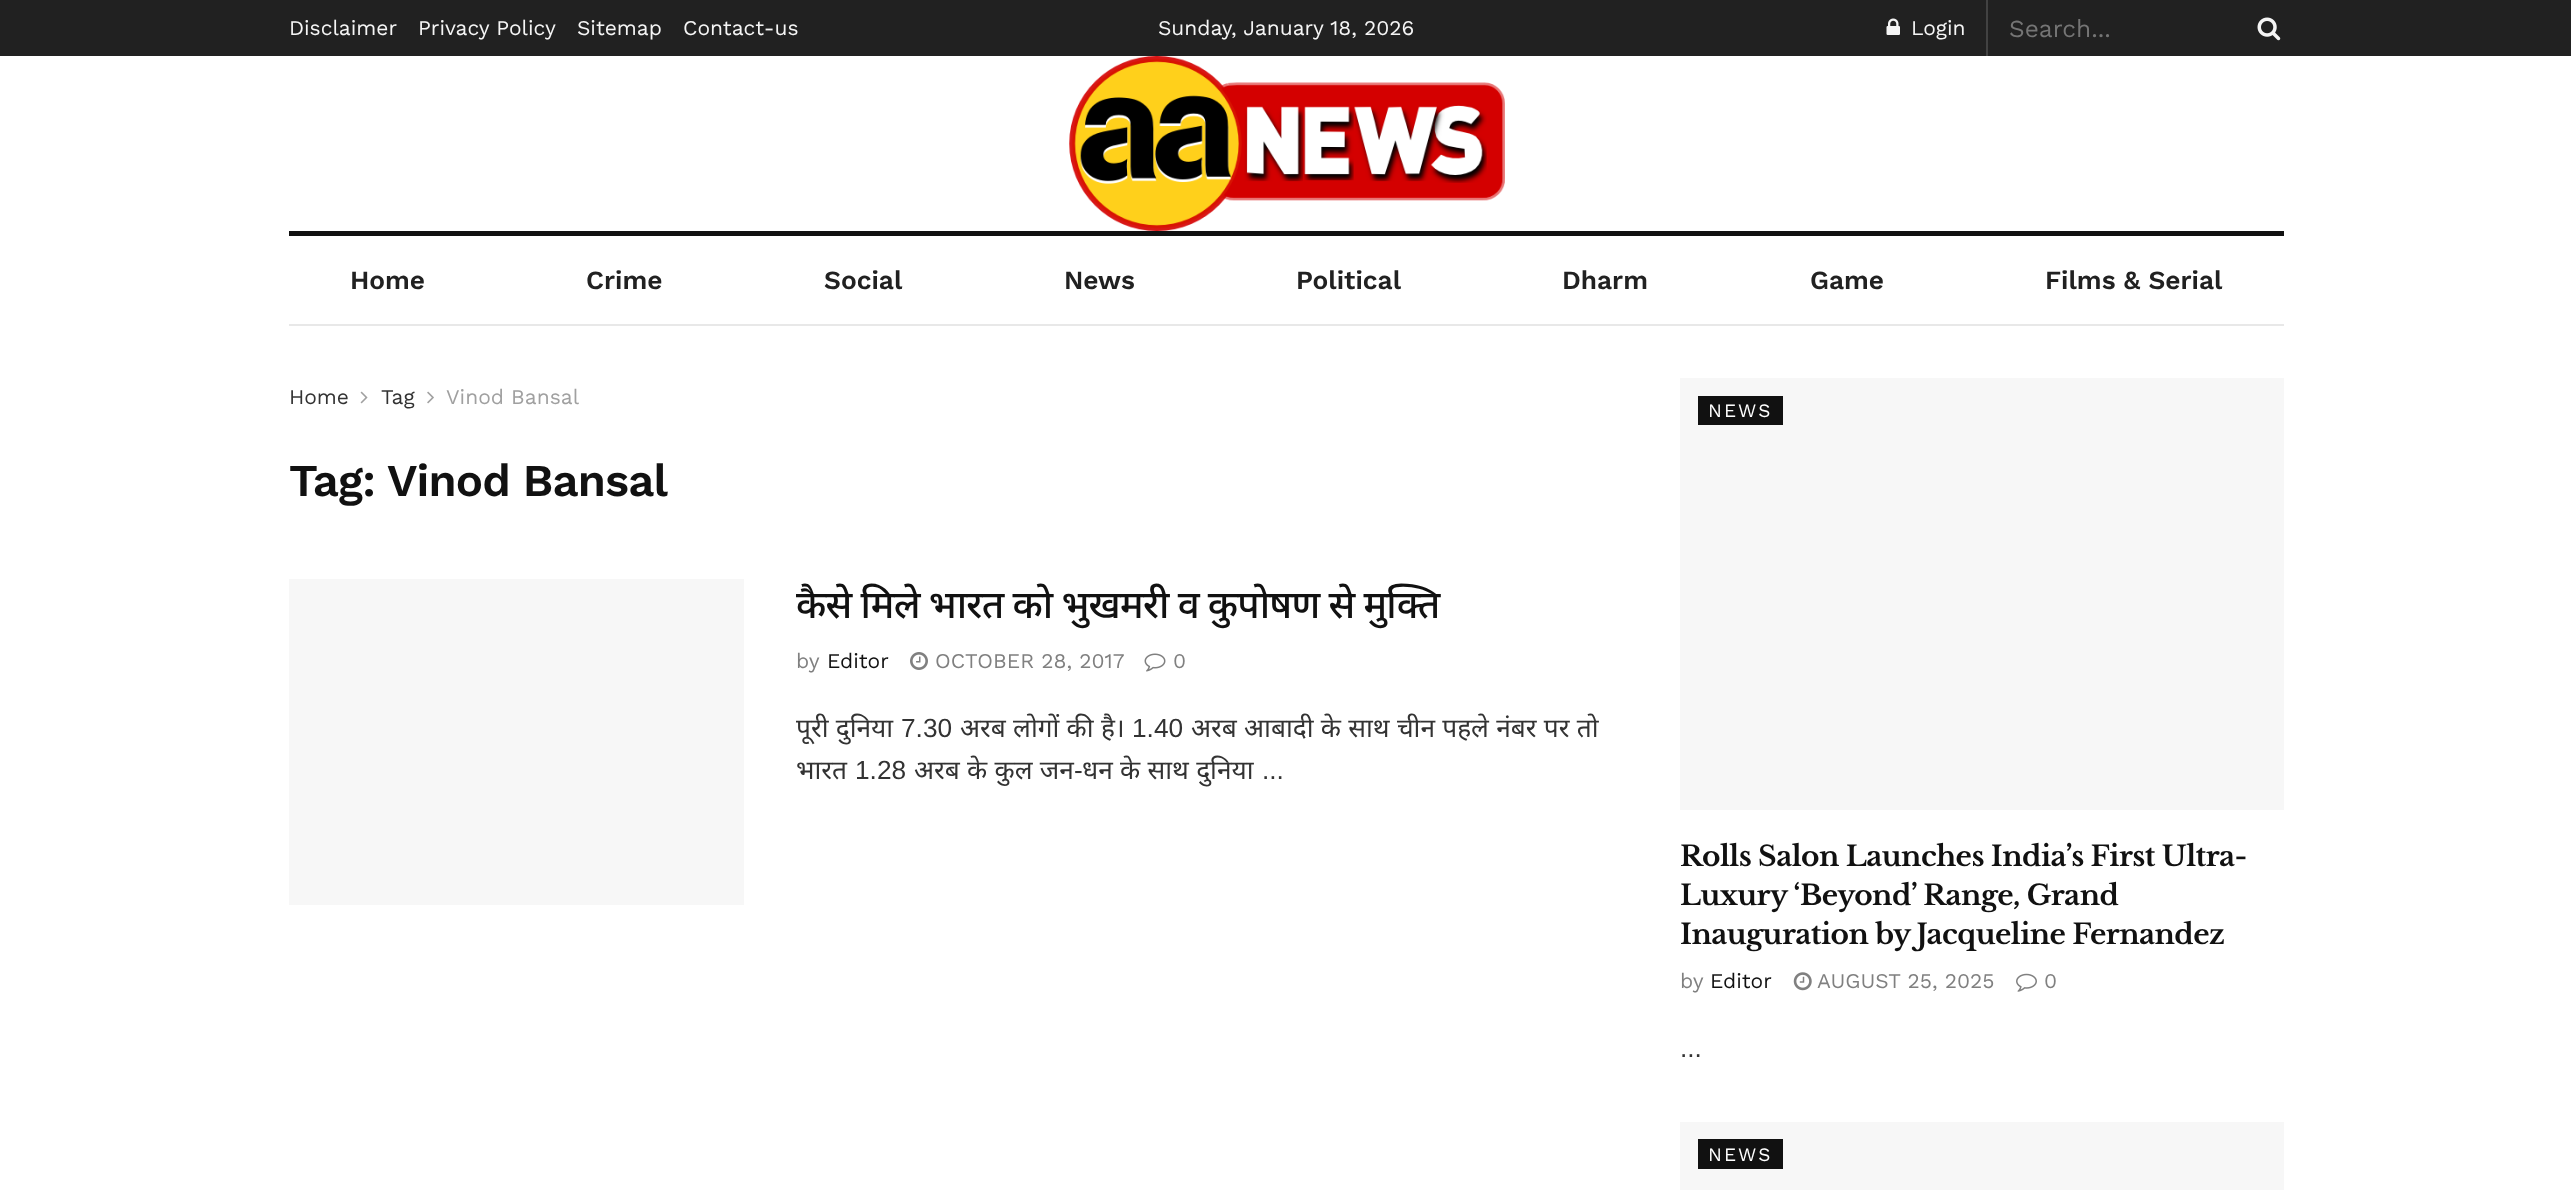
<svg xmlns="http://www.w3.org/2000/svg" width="2571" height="1190">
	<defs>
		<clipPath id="clip1"><rect x="796" y="579" width="805" height="212" /></clipPath>
	</defs>
	<rect width="100%" height="100%" fill="#FFFFFF" />
	<rect x="0" y="0" width="2571" height="56" fill="#212121" />
	<g font-family="Work Sans" font-size="21" fill="#F5F5F5">
		<text x="289" y="35">Disclaimer</text>
		<text x="418" y="35">Privacy Policy</text>
		<text x="577" y="35">Sitemap</text>
		<text x="683" y="35">Contact-us</text>
		<text x="1158" y="35">Sunday, January 18, 2026</text>
	</g>
	<rect x="1986" y="0" width="2" height="56" fill="#424242" />
	<image x="1886" y="18" width="14" height="17" href="assets/img1.png" />
	<text x="1911" y="35" font-family="Work Sans" font-size="21" fill="#F5F5F5">Login</text>
	<text x="2009" y="37" font-family="Work Sans" font-size="24.5" fill="#757575">Search...</text>
	<image x="2257" y="17" width="24" height="24" href="assets/img2.png" />
	<image x="1069" y="56" width="436" height="175" href="assets/img3.png" />
	<rect x="289" y="231" width="1995" height="5" fill="#111111" />
	<rect x="289" y="324" width="1995" height="2" fill="#E8E8E8" />
	<g font-family="Work Sans" font-size="26.25" font-weight="600" fill="#212121">
		<text x="350" y="289">Home</text>
		<text x="586" y="289">Crime</text>
		<text x="824" y="289">Social</text>
		<text x="1064" y="289">News</text>
		<text x="1296" y="289">Political</text>
		<text x="1562" y="289">Dharm</text>
		<text x="1810" y="289">Game</text>
		<text x="2045" y="289">Films &amp; Serial</text>
	</g>
	<text x="289" y="404" font-family="Work Sans" font-size="21" fill="#333333">Home</text>
	<image x="360" y="391" width="8" height="13" href="assets/img4.png" />
	<text x="381" y="404" font-family="Work Sans" font-size="21" fill="#333333">Tag</text>
	<image x="427" y="391" width="7" height="13" href="assets/img5.png" />
	<text x="446" y="404" font-family="Work Sans" font-size="21" fill="#A0A0A0">Vinod Bansal</text>
	<g font-family="Work Sans" font-size="45.5" font-weight="600" letter-spacing="-0.9" fill="#111111">
		<text x="289" y="496">Tag:</text>
		<text x="387" y="496">Vinod Bansal</text>
	</g>
	<rect x="289" y="579" width="455" height="326" fill="#F7F7F7" />
	<g clip-path="url(#clip1)">
		<text x="796" y="618" word-spacing="-0.25" font-family="Noto Sans" font-size="38.5" font-weight="500" letter-spacing="-0.75" fill="#111111">कैसे मिले भारत को भुखमरी व कुपोषण से मुक्ति</text>
	</g>
	<text x="796" y="668" font-family="Work Sans" font-size="21" fill="#808080">by</text>
	<text x="827" y="668" font-family="Work Sans" font-size="21" fill="#111111">Editor</text>
	<image x="910" y="652" width="18" height="18" href="assets/img6.png" />
	<text x="935" y="668" font-family="Work Sans" font-size="21" fill="#808080">OCTOBER 28, 2017</text>
	<image x="1144" y="653" width="22" height="19" href="assets/img7.png" />
	<text x="1173" y="668" font-family="Work Sans" font-size="21" fill="#808080">0</text>
	<g clip-path="url(#clip1)">
		<text x="796" y="737" word-spacing="0.5" font-family="Noto Sans" font-size="26.25" fill="#333333">पूरी दुनिया</text>
	</g>
	<text x="901" y="737" font-family="Liberation Sans" font-size="26.25" fill="#333333">7.30</text>
	<text x="960" y="737" word-spacing="0.5" font-family="Noto Sans" font-size="26.25" fill="#333333">अरब लोगों की है।</text>
	<text x="1132" y="737" font-family="Liberation Sans" font-size="26.25" fill="#333333">1.40</text>
	<g font-family="Noto Sans" font-size="26.25" fill="#333333">
		<text x="1191" y="737" word-spacing="0.5">अरब आबादी के साथ चीन पहले नंबर पर तो</text>
		<text x="796" y="779">भारत</text>
	</g>
	<text x="855" y="779" font-family="Liberation Sans" font-size="26.25" fill="#333333">1.28</text>
	<text x="914" y="779" word-spacing="0.5" font-family="Noto Sans" font-size="26.25" fill="#333333">अरब के कुल जन</text>
	<text x="1074" y="779" font-family="Liberation Sans" font-size="26.25" fill="#333333">-</text>
	<text x="1082" y="779" word-spacing="0.5" font-family="Noto Sans" font-size="26.25" fill="#333333">धन के साथ दुनिया</text>
	<text x="1262" y="779" font-family="Liberation Sans" font-size="26.25" fill="#333333">...</text>
	<rect x="1680" y="378" width="604" height="432" fill="#F7F7F7" />
	<rect x="1698" y="396" width="85" height="29" fill="#111111" />
	<text x="1708" y="417" font-family="Work Sans" font-size="19" letter-spacing="2" fill="#FFFFFF">NEWS</text>
	<g font-family="Libre Baskerville" font-size="28" font-weight="700" letter-spacing="-0.55" fill="#111111">
		<text x="1680" y="866">Rolls Salon Launches India’s First Ultra-</text>
		<text x="1680" y="905">Luxury ‘Beyond’ Range, Grand</text>
		<text x="1680" y="944">Inauguration by Jacqueline Fernandez</text>
	</g>
	<text x="1680" y="988" font-family="Work Sans" font-size="21" fill="#808080">by</text>
	<text x="1710" y="988" font-family="Work Sans" font-size="21" fill="#111111">Editor</text>
	<image x="1793" y="972" width="19" height="19" href="assets/img8.png" />
	<text x="1817" y="988" font-family="Work Sans" font-size="21" fill="#808080">AUGUST 25, 2025</text>
	<image x="2016" y="973" width="21" height="19" href="assets/img9.png" />
	<text x="2044" y="988" font-family="Work Sans" font-size="21" fill="#808080">0</text>
	<text x="1680" y="1057" font-family="Liberation Sans" font-size="26.25" fill="#333333">...</text>
	<rect x="1680" y="1122" width="604" height="68" fill="#F7F7F7" />
	<rect x="1698" y="1139" width="85" height="30" fill="#111111" />
	<text x="1708" y="1161" font-family="Work Sans" font-size="19" letter-spacing="2" fill="#FFFFFF">NEWS</text>
</svg>
